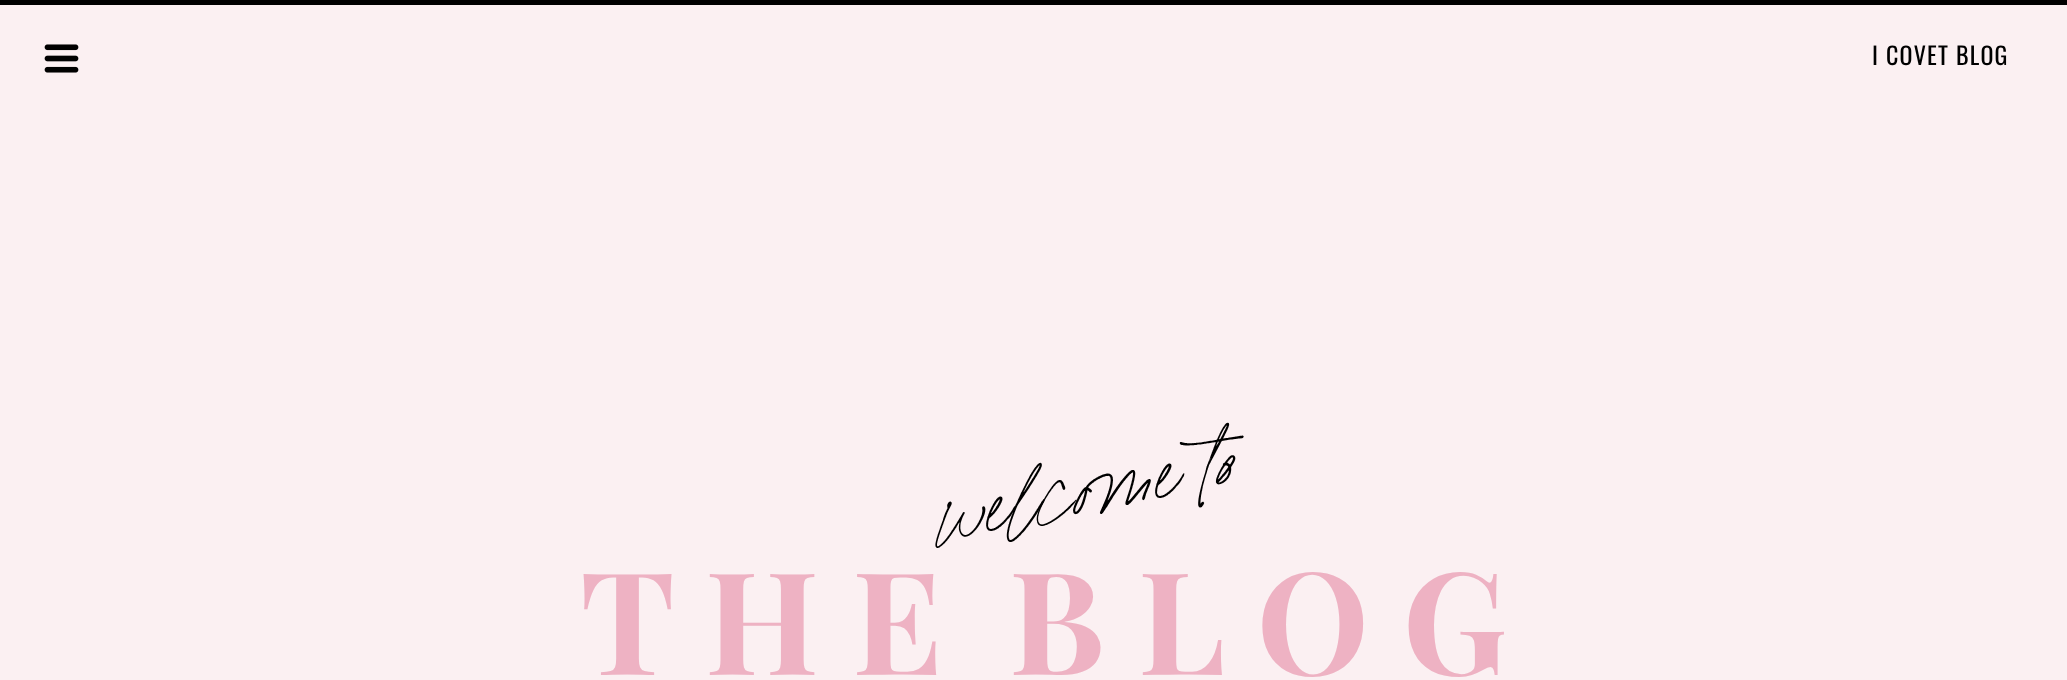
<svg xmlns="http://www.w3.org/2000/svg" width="2067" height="680">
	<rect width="100%" height="100%" fill="#FBF0F2" />
	<rect x="0" y="0" width="2067" height="5" fill="#000000" />
	<image x="44" y="44" width="35" height="29" href="assets/img1.png" />
	<text x="1872" y="65" font-family="Oswald" font-size="24" letter-spacing="1.25" fill="#000000">I COVET BLOG</text>
	<text x="941" y="539" transform="rotate(-11 941 539)" font-family="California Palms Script" font-size="135" fill="#000000">welcome to</text>
	<text x="580" y="675" font-family="Playfair Display" font-size="142.5" font-weight="700" fill="#EEB2C3" xml:space="preserve">T H E  B L O G</text>
</svg>
